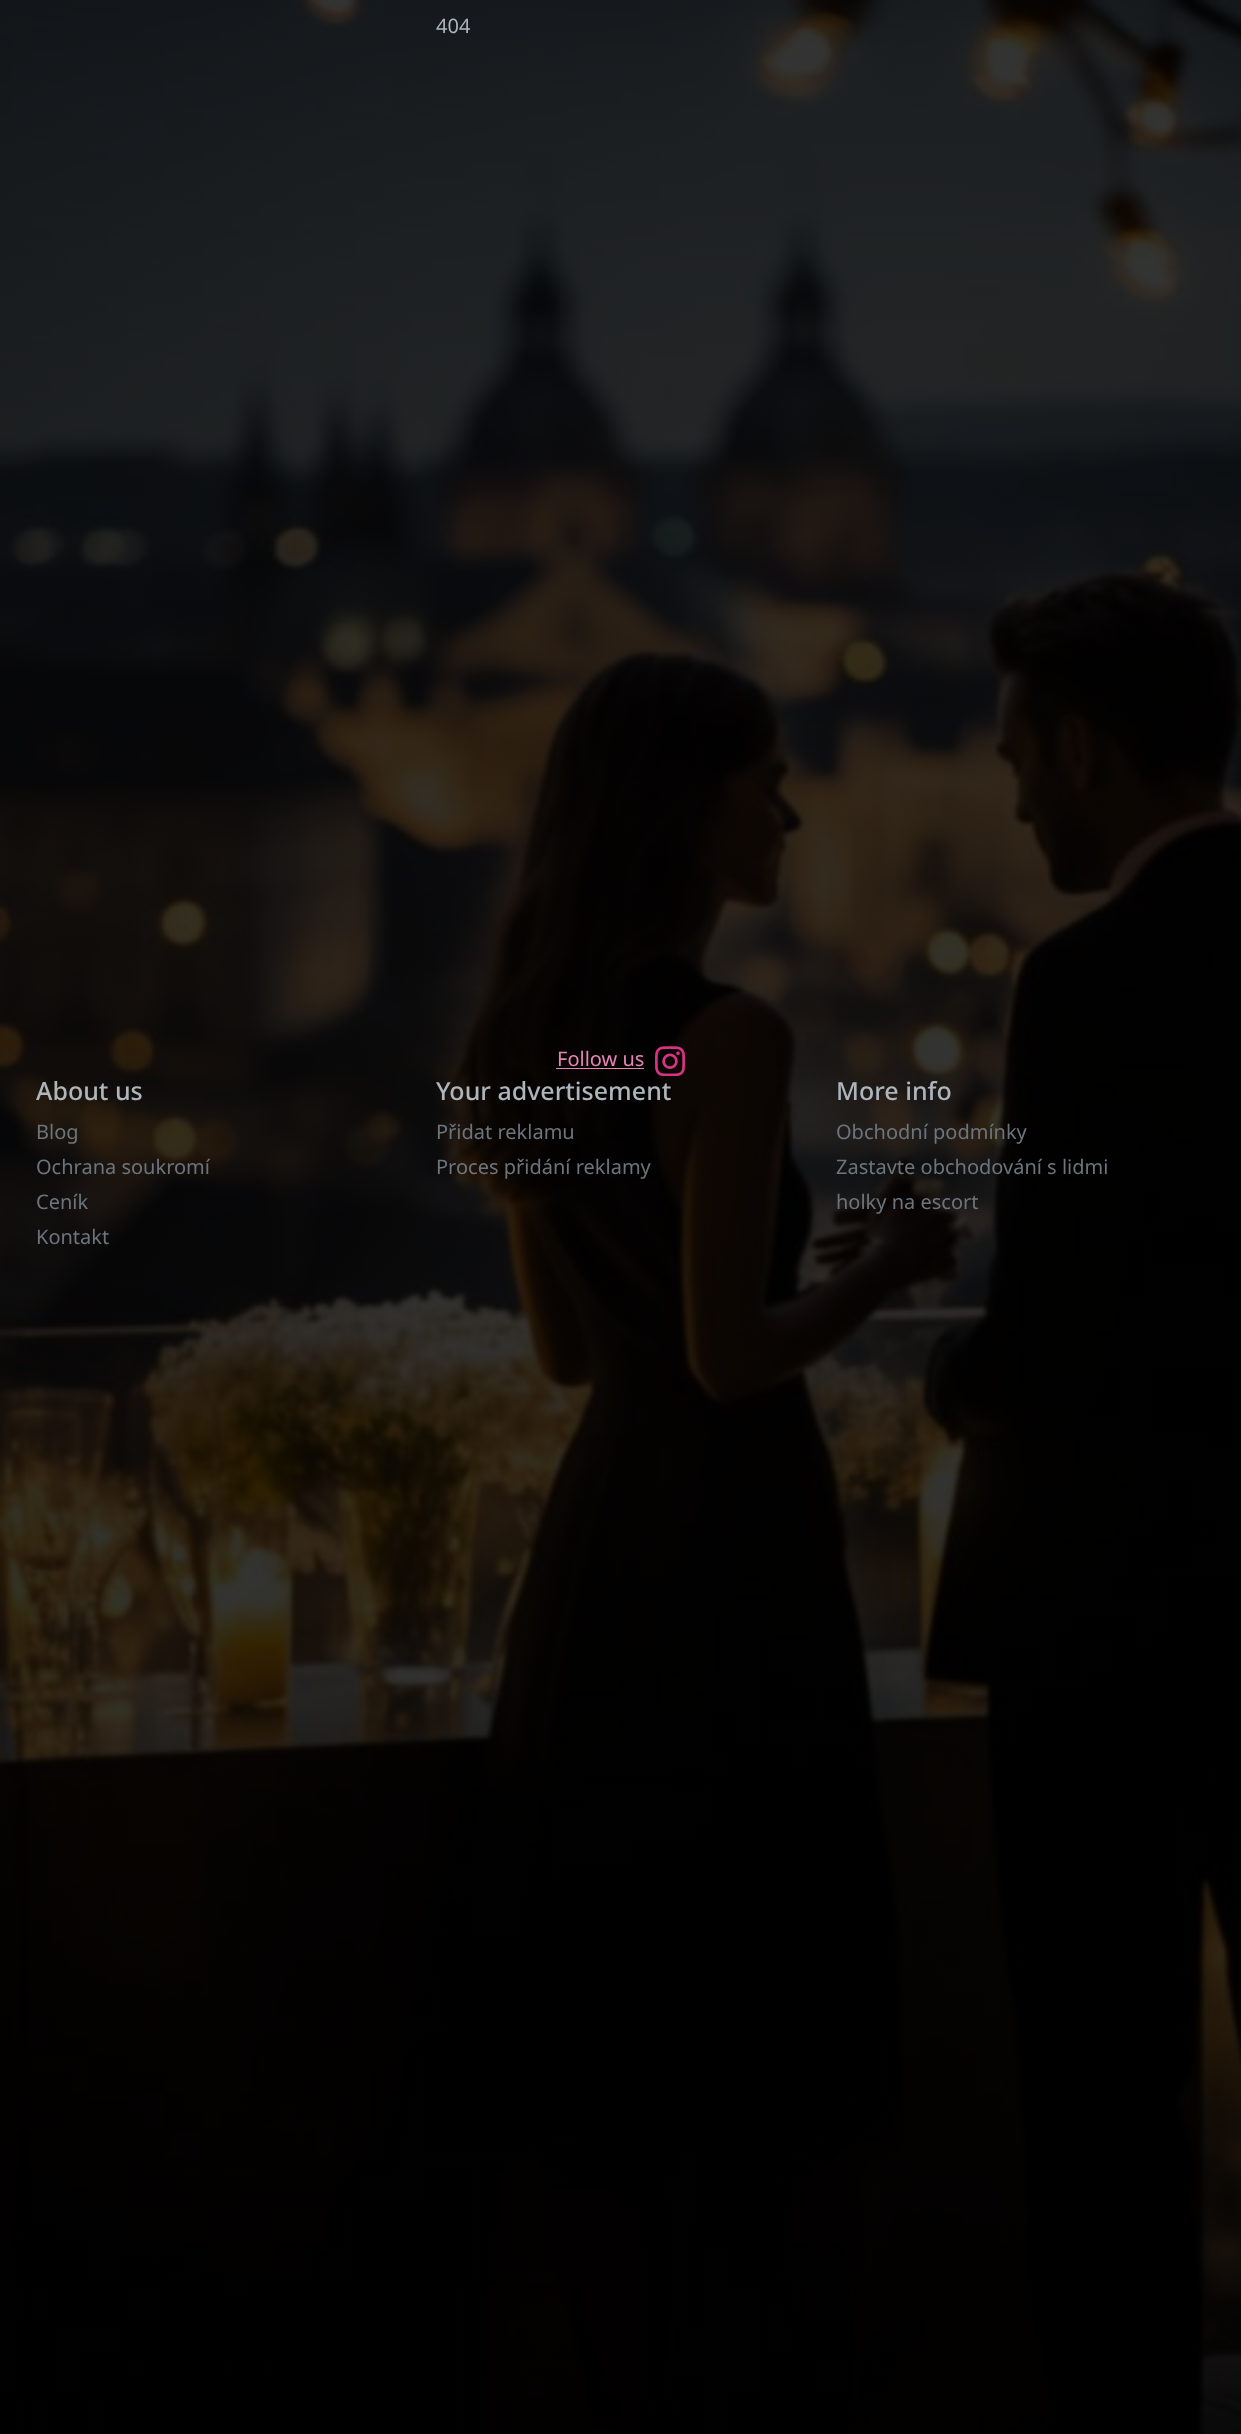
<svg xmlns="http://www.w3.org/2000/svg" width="1241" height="2434">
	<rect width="100%" height="100%" fill="#FFFFFF" />
	<image x="0" y="0" width="1241" height="2434" href="assets/img1.png" />
	<text x="436" y="33" font-family="Noto Sans" font-size="20" fill="#ADB5BD">404</text>
	<text x="557" y="1066" font-family="Noto Sans" font-size="20" fill="#E685B5">Follow us</text>
	<rect x="556" y="1068" width="88" height="1" fill="#E685B5" />
	<image x="655" y="1046" width="30" height="30" href="assets/img2.png" />
	<text x="36" y="1100" font-family="Noto Sans" font-size="25" font-weight="500" fill="#ADB5BD">About us</text>
	<g font-family="Noto Sans" font-size="20" fill="#6C757D">
		<text x="36" y="1139">Blog</text>
		<text x="36" y="1174">Ochrana soukromí</text>
		<text x="36" y="1209">Ceník</text>
		<text x="36" y="1244">Kontakt</text>
	</g>
	<text x="436" y="1100" font-family="Noto Sans" font-size="25" font-weight="500" fill="#ADB5BD">Your advertisement</text>
	<g font-family="Noto Sans" font-size="20" fill="#6C757D">
		<text x="436" y="1139">Přidat reklamu</text>
		<text x="436" y="1174">Proces přidání reklamy</text>
	</g>
	<text x="836" y="1100" font-family="Noto Sans" font-size="25" font-weight="500" fill="#ADB5BD">More info</text>
	<g font-family="Noto Sans" font-size="20" fill="#6C757D">
		<text x="836" y="1139">Obchodní podmínky</text>
		<text x="836" y="1174">Zastavte obchodování s lidmi</text>
		<text x="836" y="1209">holky na escort</text>
	</g>
</svg>
